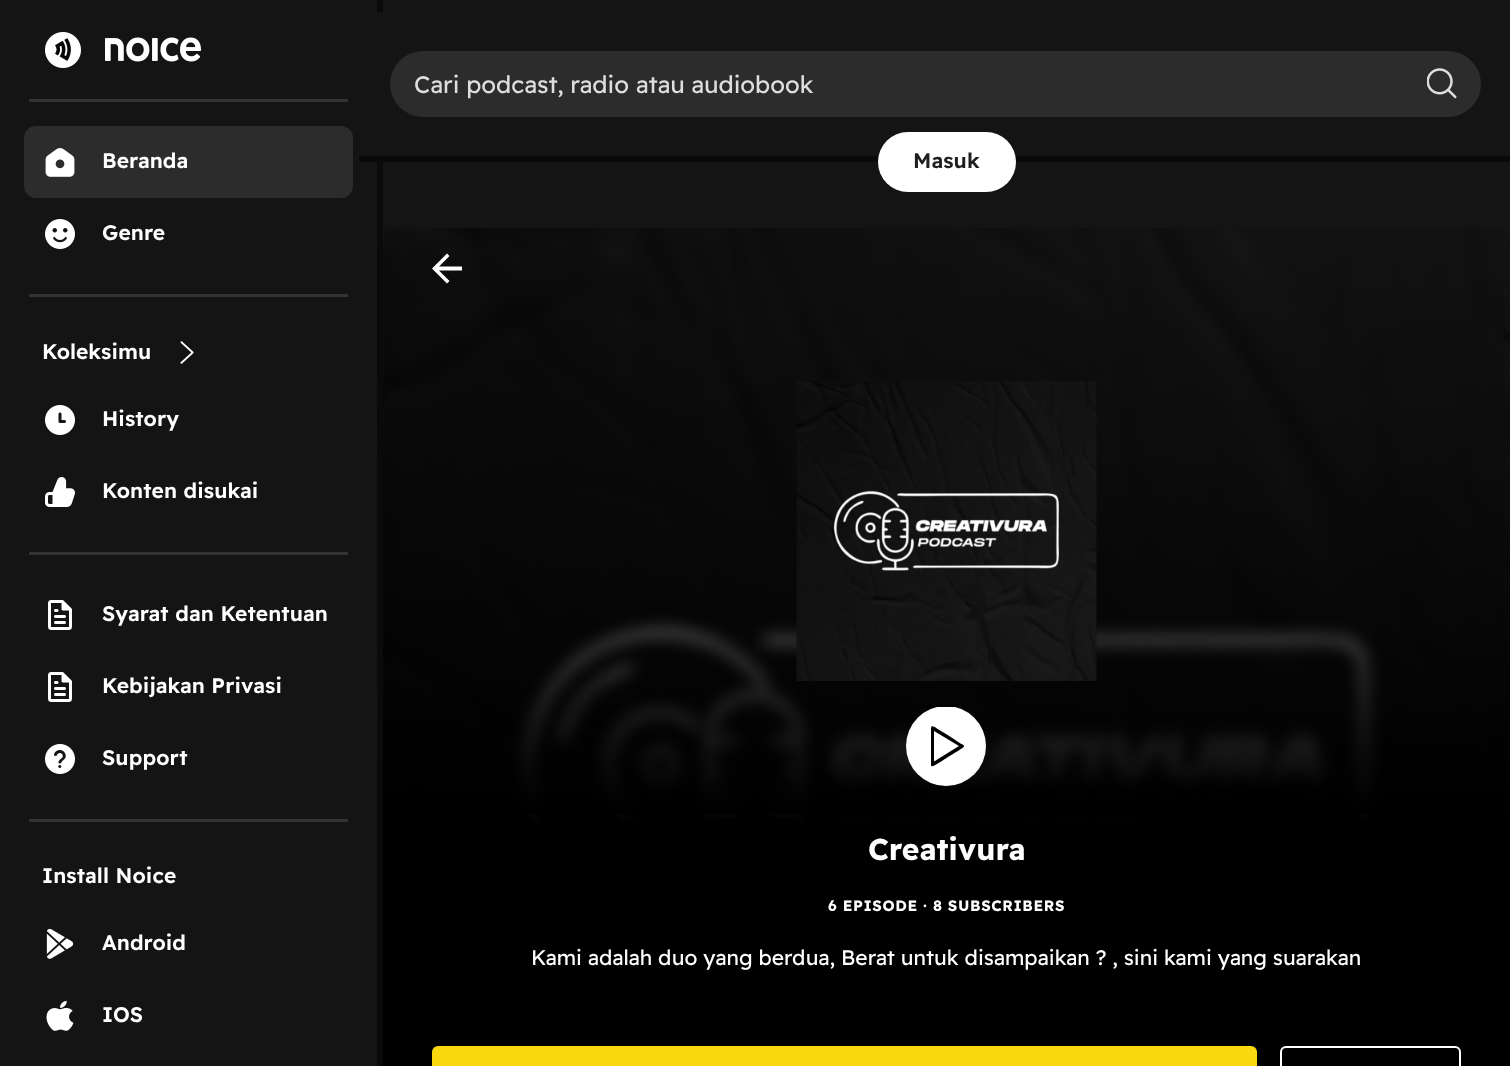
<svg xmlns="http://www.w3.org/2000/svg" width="1510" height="1066">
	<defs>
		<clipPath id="clip1"><rect x="906" y="707" width="80" height="79" /></clipPath>
	</defs>
	<rect width="100%" height="100%" fill="#141414" />
	<rect x="377" y="0" width="6" height="1066" fill="#0A0A0A" />
	<image x="45" y="32" width="156" height="36" href="assets/img1.png" />
	<rect x="29" y="99" width="319" height="3" fill="#333333" />
	<rect x="24" y="126" width="329" height="72" rx="12" fill="#2C2C2C" />
	<image x="45" y="148" width="30" height="29" href="assets/img2.png" />
	<text x="102" y="168" font-family="Readex Pro" font-size="21" font-weight="600" letter-spacing="0.1" fill="#FFFFFF">Beranda</text>
	<image x="45" y="219" width="30" height="30" href="assets/img3.png" />
	<text x="102" y="240" font-family="Readex Pro" font-size="21" font-weight="600" letter-spacing="0.1" fill="#FFFFFF">Genre</text>
	<rect x="29" y="294" width="319" height="3" fill="#333333" />
	<text x="42" y="359" font-family="Readex Pro" font-size="21" font-weight="600" letter-spacing="0.1" fill="#FFFFFF">Koleksimu</text>
	<image x="180" y="341" width="14" height="23" href="assets/img4.png" />
	<image x="45" y="405" width="30" height="30" href="assets/img5.png" />
	<text x="102" y="426" font-family="Readex Pro" font-size="21" font-weight="600" letter-spacing="0.1" fill="#FFFFFF">History</text>
	<image x="45" y="477" width="30" height="30" href="assets/img6.png" />
	<text x="102" y="498" font-family="Readex Pro" font-size="21" font-weight="600" letter-spacing="0.1" fill="#FFFFFF">Konten disukai</text>
	<rect x="29" y="552" width="319" height="3" fill="#333333" />
	<image x="48" y="600" width="24" height="30" href="assets/img7.png" />
	<text x="102" y="621" font-family="Readex Pro" font-size="21" font-weight="600" letter-spacing="0.1" fill="#FFFFFF">Syarat dan Ketentuan</text>
	<image x="48" y="672" width="24" height="30" href="assets/img7.png" />
	<text x="102" y="693" font-family="Readex Pro" font-size="21" font-weight="600" letter-spacing="0.1" fill="#FFFFFF">Kebijakan Privasi</text>
	<image x="45" y="744" width="30" height="30" href="assets/img8.png" />
	<text x="102" y="765" font-family="Readex Pro" font-size="21" font-weight="600" letter-spacing="0.1" fill="#FFFFFF">Support</text>
	<rect x="29" y="819" width="319" height="3" fill="#333333" />
	<text x="42" y="883" font-family="Readex Pro" font-size="21" font-weight="600" letter-spacing="0.1" fill="#FFFFFF">Install Noice</text>
	<image x="46" y="929" width="28" height="30" href="assets/img9.png" />
	<text x="102" y="950" font-family="Readex Pro" font-size="21" font-weight="600" letter-spacing="0.1" fill="#FFFFFF">Android</text>
	<image x="46" y="1000" width="28" height="31" href="assets/img10.png" />
	<text x="102" y="1022" font-family="Readex Pro" font-size="21" font-weight="600" letter-spacing="0.1" fill="#FFFFFF">IOS</text>
	<rect x="377" y="12" width="6" height="144" fill="#141414" />
	<rect x="359" y="156" width="1151" height="6" fill="#0A0A0A" />
	<rect x="390" y="51" width="1091" height="66" rx="33" fill="#2C2C2C" />
	<text x="414" y="93" font-family="Readex Pro" font-size="24" fill="#DEDEDE">Cari podcast, radio atau audiobook</text>
	<image x="1427" y="68" width="30" height="31" href="assets/img11.png" />
	<rect x="878" y="132" width="138" height="60" rx="30" fill="#FFFFFF" />
	<text x="913" y="168" font-family="Readex Pro" font-size="21" font-weight="600" letter-spacing="0.1" fill="#1F1F1F">Masuk</text>
	<image x="383" y="228" width="1127" height="838" href="assets/img12.png" />
	<image x="384" y="228" width="1120" height="586" href="assets/img13.png" />
	<path d="M462 266.5H439L449.5 256L447 253.5L432 268.5L447 283.5L449.5 281L439 270.5H462Z" fill="#FFFFFF" />
	<image x="796" y="381" width="301" height="300" href="assets/img14.png" />
	<g clip-path="url(#clip1)">
		<circle cx="946" cy="746" r="40" fill="#FFFFFF" />
	</g>
	<path d="M959 746L934 731V761.5ZM948.5 735.5L960.5 743.5C961.5 744 964.5 745 964 746.5C963.5 748 946 758 943.5 760C935.5 764.5 931.5 768.5 931 765V728C931 723.5 938 729.5 938.5 729.5Z" fill="#000000" />
	<text x="868" y="860" font-family="Readex Pro" font-size="30" font-weight="700" fill="#FFFFFF">Creativura</text>
	<text x="828" y="911" font-family="Readex Pro" font-size="15" font-weight="700" letter-spacing="0.6" fill="#FFFFFF">6 EPISODE · 8 SUBSCRIBERS</text>
	<text x="531" y="965" font-family="Readex Pro" font-size="21" fill="#FFFFFF">Kami adalah duo yang berdua, Berat untuk disampaikan ? , sini kami yang suarakan</text>
	<rect x="432" y="1046" width="825" height="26" rx="6" fill="#FAD810" />
	<rect x="1281" y="1047" width="179" height="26" rx="5" fill="none" stroke="#FFFFFF" stroke-width="2" />
</svg>
